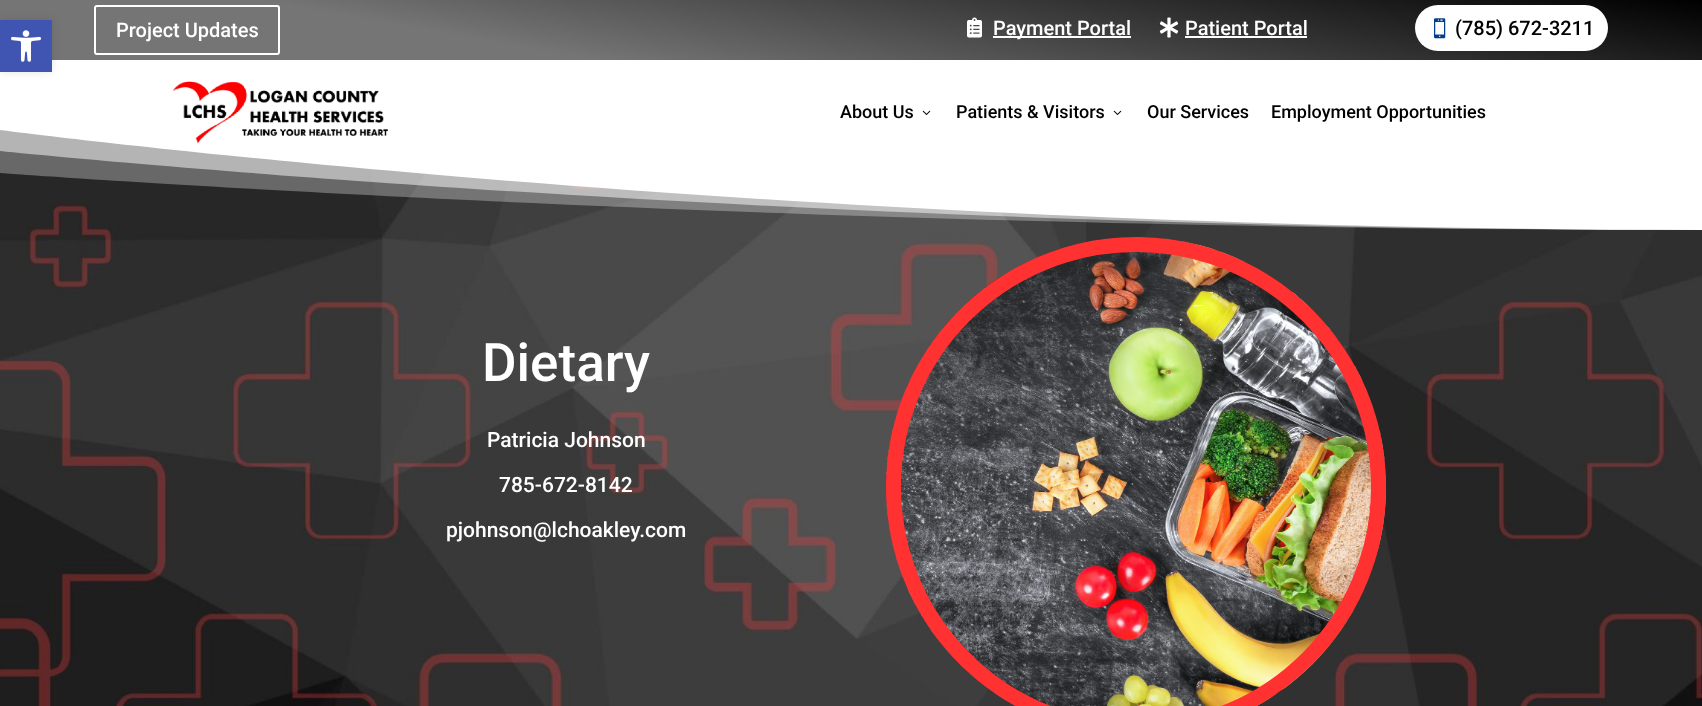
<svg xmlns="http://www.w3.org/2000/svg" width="1702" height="706">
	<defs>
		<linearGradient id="g1" gradientUnits="userSpaceOnUse" x1="882" y1="-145" x2="820" y2="205"><stop offset="0" stop-color="#000000" /><stop offset="0.71" stop-color="#757575" /></linearGradient>
	</defs>
	<rect width="100%" height="100%" fill="#FFFFFF" />
	<rect x="0" y="0" width="1702" height="60" fill="url(#g1)" />
	<rect x="0" y="20" width="52" height="52" fill="#000000" fill-opacity="0.1" filter="blur(5px)" />
	<rect x="0" y="20" width="52" height="52" fill="#4054B2" />
	<image x="11" y="30" width="30" height="32" href="assets/img1.png" />
	<rect x="95" y="6" width="184" height="48" rx="2" fill="none" stroke="#FFFFFF" stroke-width="2" />
	<text x="116" y="37" font-family="Roboto" font-size="20" font-weight="500" fill="#FFFFFF">Project Updates</text>
	<image x="967" y="17" width="15" height="21" href="assets/img2.png" />
	<rect x="993" y="36" width="138" height="2" fill="#FFFFFF" />
	<text x="993" y="35" font-family="Roboto" font-size="20" font-weight="500" fill="#FFFFFF">Payment Portal</text>
	<image x="1159" y="17" width="20" height="21" href="assets/img3.png" />
	<text x="1185" y="35" font-family="Roboto" font-size="20" font-weight="500" fill="#FFFFFF">Patient Portal</text>
	<rect x="1185" y="36" width="122" height="2" fill="#FFFFFF" />
	<rect x="1415" y="5" width="193" height="46" rx="23" fill="#FFFFFF" />
	<image x="1434" y="18" width="12" height="21" href="assets/img4.png" />
	<text x="1455" y="35" font-family="Roboto" font-size="20" font-weight="500" fill="#000000">(785) 672-3211</text>
	<image x="0" y="130" width="1702" height="576" href="assets/img7.png" />
	<path d="M0 130V173C0 173 762 230 1702 230V130Z" fill="#FFFFFF" fill-opacity="0.3" />
	<path d="M0 130V151C0 151 762 230 1702 230V130Z" fill="#FFFFFF" fill-opacity="0.5" />
	<path d="M0 130C0 130 762 230 1702 230V130Z" fill="#FFFFFF" />
	<image x="173" y="81" width="215" height="63" href="assets/img5.png" />
	<text x="840" y="118" font-family="Roboto" font-size="18" font-weight="500" fill="#000000">About Us</text>
	<image x="922" y="110" width="9" height="5" href="assets/img6.png" />
	<text x="956" y="118" font-family="Roboto" font-size="18" font-weight="500" fill="#000000">Patients &amp; Visitors</text>
	<image x="1113" y="110" width="9" height="5" href="assets/img6.png" />
	<g font-family="Roboto" font-size="18" font-weight="500" fill="#000000">
		<text x="1147" y="118">Our Services</text>
		<text x="1271" y="118">Employment Opportunities</text>
	</g>
	<text x="482" y="381" font-family="Roboto" font-size="53" font-weight="500" fill="#FFFFFF">Dietary</text>
	<g font-family="Roboto" font-size="21" font-weight="500" fill="#FFFFFF">
		<text x="487" y="447">Patricia Johnson</text>
		<text x="499" y="492">785-672-8142</text>
		<text x="446" y="537">pjohnson@lchoakley.com</text>
	</g>
	<image x="886" y="237" width="500" height="469" href="assets/img8.png" />
</svg>
